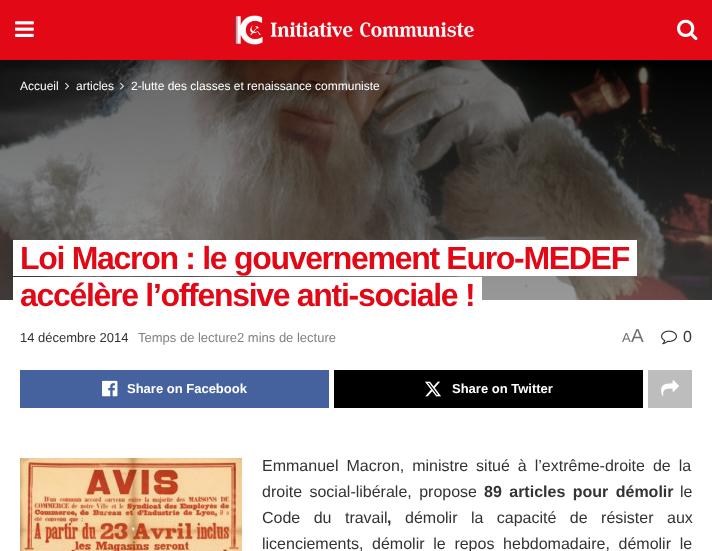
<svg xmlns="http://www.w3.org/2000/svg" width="712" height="551">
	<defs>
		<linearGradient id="g1" gradientUnits="userSpaceOnUse" x1="356" y1="60" x2="356" y2="300"><stop offset="0" stop-color="#000000" /><stop offset="1" stop-color="#545454" /></linearGradient>
	</defs>
	<rect width="100%" height="100%" fill="#FFFFFF" />
	<rect x="0" y="60" width="712" height="240" fill="url(#g1)" />
	<image x="0" y="60" width="712" height="240" href="assets/img4.png" />
	<rect x="0" y="2" width="712" height="60" fill="#000000" fill-opacity="0.1" filter="blur(3px)" />
	<rect x="0" y="0" width="712" height="60" fill="#E20816" />
	<image x="15" y="21" width="19" height="16" href="assets/img1.png" />
	<image x="235" y="15" width="239" height="34" href="assets/img2.png" />
	<image x="677" y="19" width="21" height="22" href="assets/img3.png" />
	<text x="20" y="90" font-family="Liberation Sans" font-size="12" fill="#FFFFFF">Accueil</text>
	<image x="65" y="82" width="4" height="8" href="assets/img5.png" />
	<text x="76" y="90" font-family="Liberation Sans" font-size="12" fill="#FFFFFF">articles</text>
	<image x="120" y="82" width="4" height="8" href="assets/img6.png" />
	<text x="131" y="90" font-family="Liberation Sans" font-size="12" fill="#FFFFFF">2-lutte des classes et renaissance communiste</text>
	<rect x="20" y="240" width="617" height="36" fill="#FFFFFF" />
	<text x="20" y="269" font-family="Liberation Sans" font-size="32" font-weight="700" letter-spacing="-1.3" fill="#E20816">Loi Macron : le gouvernement Euro-MEDEF</text>
	<rect x="13" y="240" width="7" height="36" fill="#FFFFFF" />
	<rect x="20" y="277" width="462" height="23" fill="#FFFFFF" />
	<text x="20" y="306" font-family="Liberation Sans" font-size="32" font-weight="700" letter-spacing="-1.3" fill="#E20816">accélère l’offensive anti-sociale !</text>
	<rect x="13" y="277" width="7" height="23" fill="#FFFFFF" />
	<text x="20" y="342" font-family="Liberation Sans" font-size="13" fill="#333333">14 décembre 2014</text>
	<text x="138" y="342" font-family="Liberation Sans" font-size="13" fill="#808080">Temps de lecture2 mins de lecture</text>
	<text x="622" y="342" font-family="Liberation Sans" font-size="13" fill="#707070">A</text>
	<text x="631" y="342" font-family="Liberation Sans" font-size="19" fill="#707070">A</text>
	<image x="661" y="330" width="16" height="15" href="assets/img7.png" />
	<text x="683" y="342" font-family="Liberation Sans" font-size="16" fill="#333333">0</text>
	<rect x="20" y="370" width="309" height="38" fill="#45629F" />
	<image x="102" y="380" width="16" height="17" href="assets/img8.png" />
	<text x="127" y="393" font-family="Liberation Sans" font-size="13" font-weight="700" fill="#FFFFFF">Share on Facebook</text>
	<rect x="334" y="370" width="309" height="38" fill="#000000" />
	<image x="425" y="381" width="16" height="16" href="assets/img9.png" />
	<text x="452" y="393" font-family="Liberation Sans" font-size="13" font-weight="700" fill="#FFFFFF">Share on Twitter</text>
	<rect x="648" y="370" width="44" height="38" fill="#BDBDBD" />
	<image x="661" y="380" width="18" height="17" href="assets/img10.png" />
	<image x="20" y="458" width="222" height="93" href="assets/img11.png" />
	<g font-family="Liberation Sans" font-size="16" fill="#333333">
		<text x="262" y="471" word-spacing="3.5">Emmanuel Macron, ministre situé à l’extrême-droite de la</text>
		<text x="262" y="497" word-spacing="3">droite social-libérale, propose</text>
	</g>
	<text x="484" y="497" word-spacing="3" font-family="Liberation Sans" font-size="16" font-weight="700" fill="#333333">89 articles pour démolir</text>
	<g font-family="Liberation Sans" font-size="16" fill="#333333">
		<text x="680" y="497">le</text>
		<text x="262" y="523" word-spacing="9">Code du travail</text>
	</g>
	<text x="387" y="523" font-family="Liberation Sans" font-size="16" font-weight="700" fill="#333333">,</text>
	<g font-family="Liberation Sans" font-size="16" fill="#333333">
		<text x="405" y="523" word-spacing="9">démolir la capacité de résister aux</text>
		<text x="262" y="549" word-spacing="4.25">licenciements, démolir le repos hebdomadaire, démolir le</text>
	</g>
</svg>
